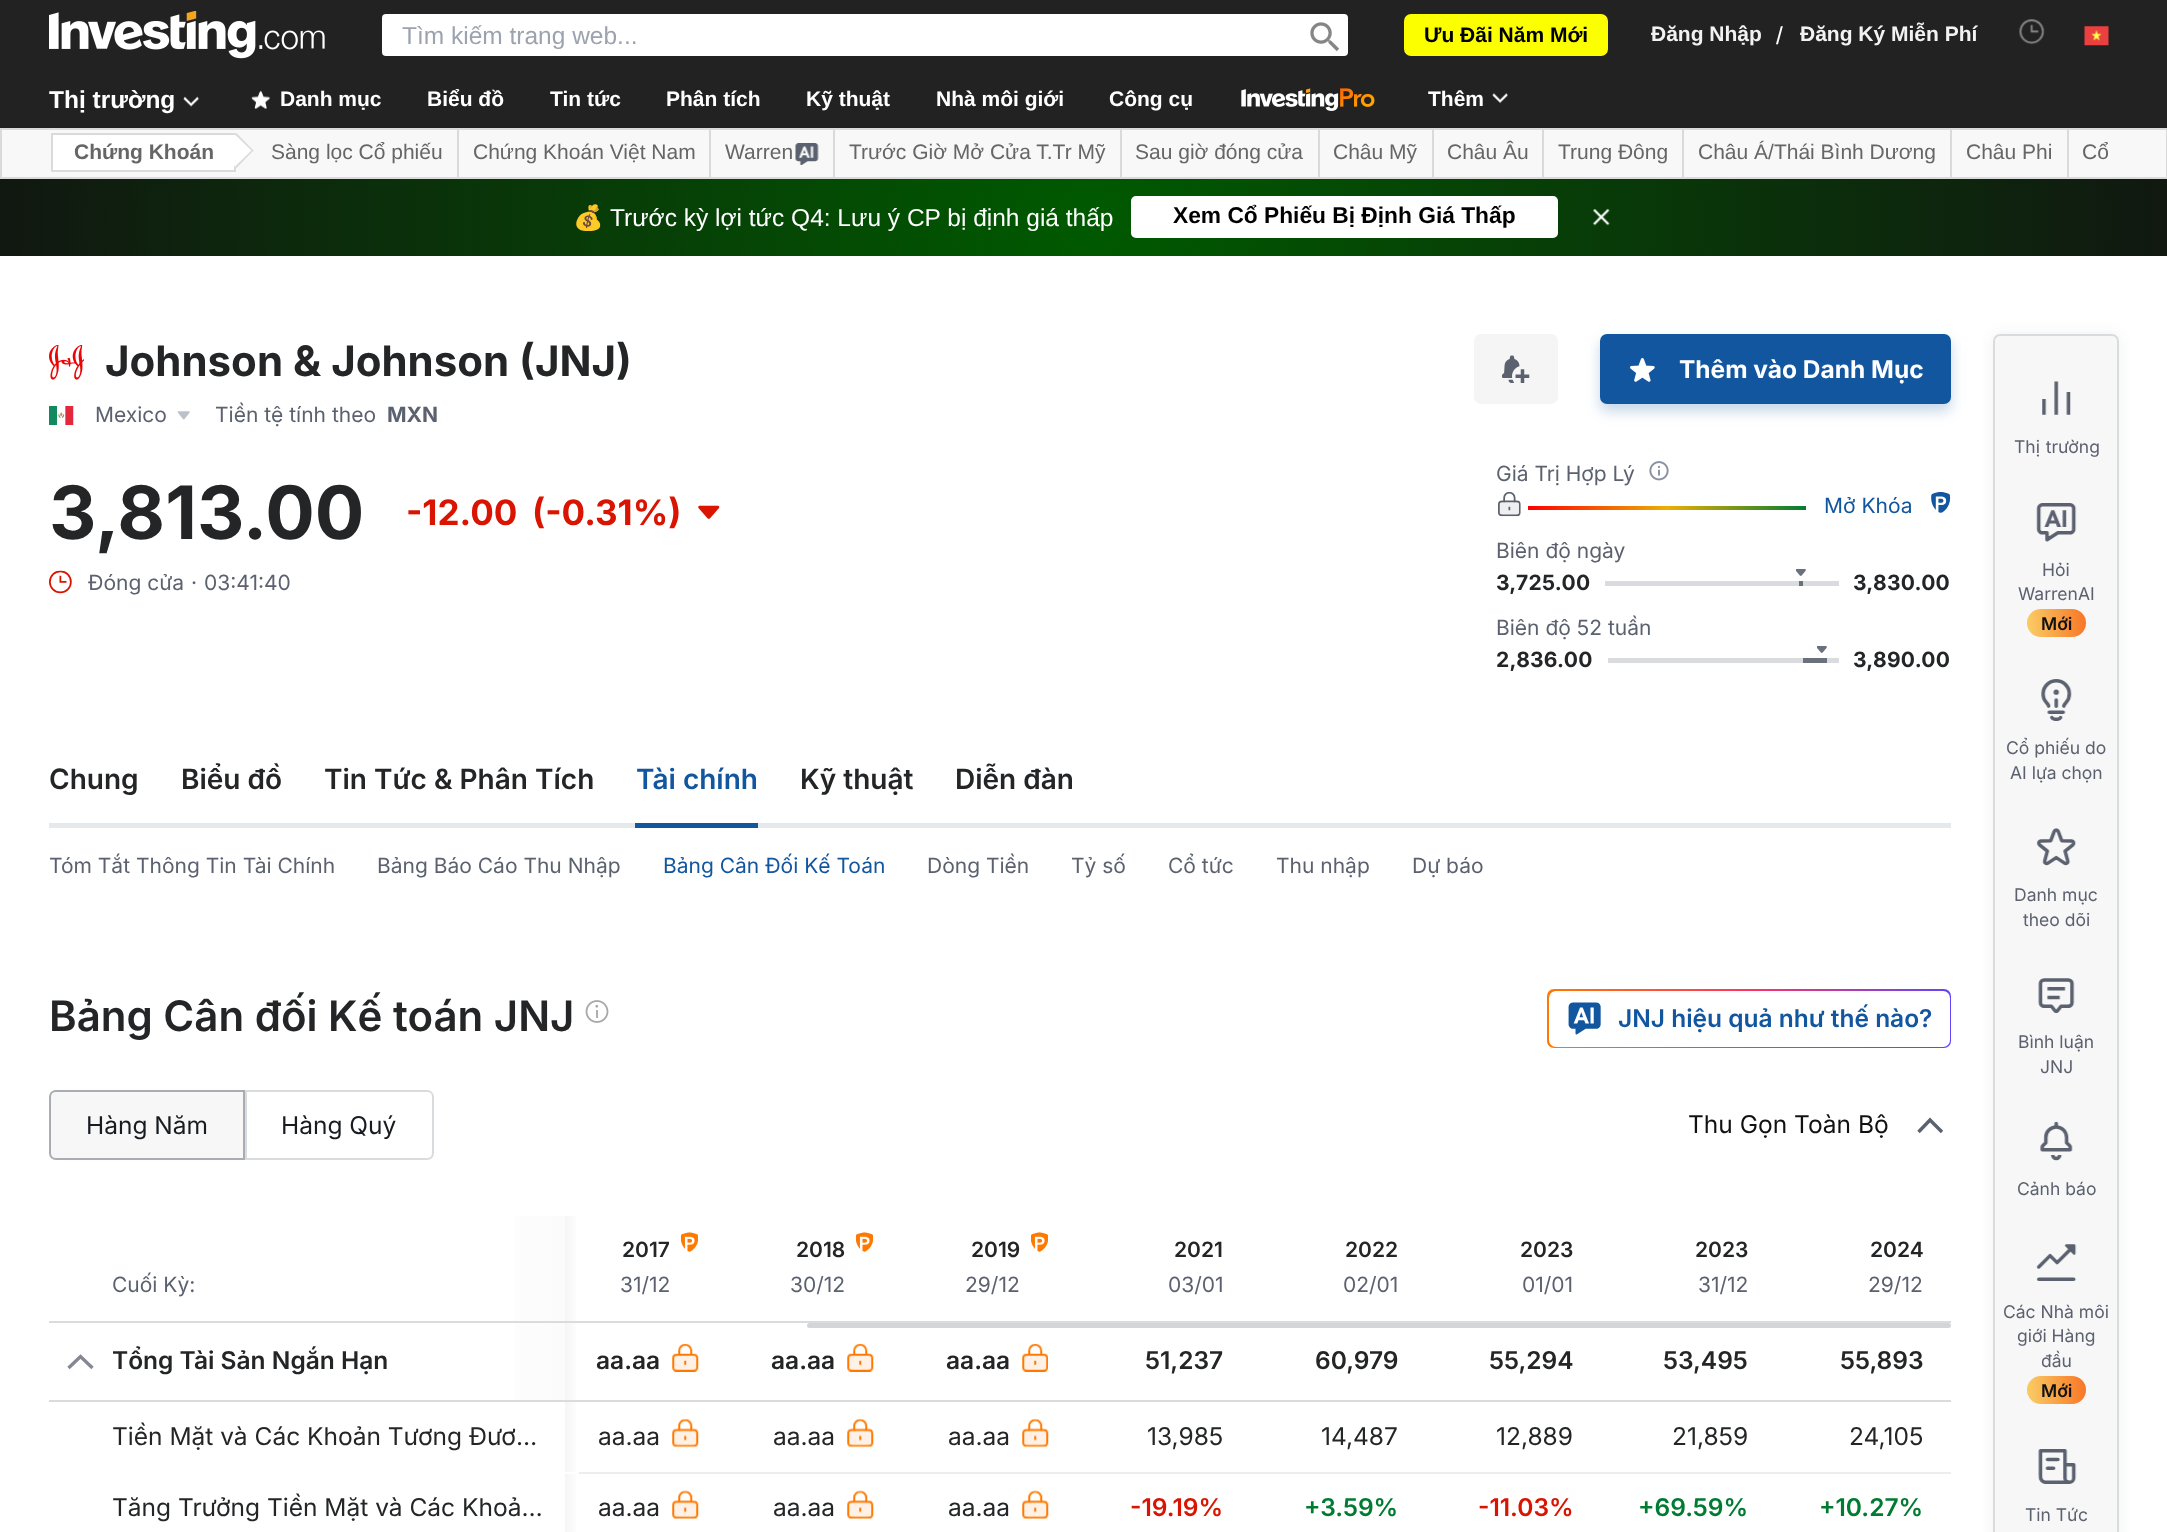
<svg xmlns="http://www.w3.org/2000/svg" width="2167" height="1532">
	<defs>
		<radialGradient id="g1" gradientUnits="userSpaceOnUse" cx="1091" cy="221" r="1094"><stop offset="0.01" stop-color="#005900" /><stop offset="1" stop-color="#111711" /></radialGradient>
		<linearGradient id="g2" gradientUnits="userSpaceOnUse" x1="1528" y1="508" x2="1806" y2="508"><stop offset="0" stop-color="#FF0000" /><stop offset="0.5" stop-color="#EBAE04" /><stop offset="1" stop-color="#007C32" /></linearGradient>
		<linearGradient id="g3" gradientUnits="userSpaceOnUse" x1="1547" y1="1019" x2="1951" y2="1019"><stop offset="0" stop-color="#FF7901" /><stop offset="0.5" stop-color="#FF3363" /><stop offset="1" stop-color="#6244FF" /></linearGradient>
		<linearGradient id="g4" gradientUnits="userSpaceOnUse" x1="432" y1="1269" x2="565" y2="1269"><stop offset="0" stop-color="#FFFFFF" /><stop offset="1" stop-color="#FBFBFB" /></linearGradient>
		<linearGradient id="g5" gradientUnits="userSpaceOnUse" x1="565" y1="1269" x2="579" y2="1269"><stop offset="0" stop-color="#F5F5F6" /><stop offset="1" stop-color="#FFFFFF" /></linearGradient>
		<linearGradient id="g6" gradientUnits="userSpaceOnUse" x1="432" y1="1362" x2="565" y2="1362"><stop offset="0" stop-color="#FFFFFF" /><stop offset="1" stop-color="#FBFBFB" /></linearGradient>
		<linearGradient id="g7" gradientUnits="userSpaceOnUse" x1="565" y1="1362" x2="579" y2="1362"><stop offset="0" stop-color="#F5F5F6" /><stop offset="1" stop-color="#FFFFFF" /></linearGradient>
		<linearGradient id="g8" gradientUnits="userSpaceOnUse" x1="565" y1="1437" x2="579" y2="1437"><stop offset="0" stop-color="#F5F5F6" /><stop offset="1" stop-color="#FFFFFF" /></linearGradient>
		<linearGradient id="g9" gradientUnits="userSpaceOnUse" x1="565" y1="1509" x2="579" y2="1509"><stop offset="0" stop-color="#F5F5F6" /><stop offset="1" stop-color="#FFFFFF" /></linearGradient>
		<clipPath id="clip1"><rect x="599" y="1419" width="61" height="35" /></clipPath>
		<clipPath id="clip2"><rect x="774" y="1419" width="61" height="35" /></clipPath>
		<clipPath id="clip3"><rect x="949" y="1419" width="61" height="35" /></clipPath>
		<clipPath id="clip4"><rect x="599" y="1491" width="61" height="35" /></clipPath>
		<clipPath id="clip5"><rect x="774" y="1491" width="61" height="35" /></clipPath>
		<clipPath id="clip6"><rect x="949" y="1491" width="61" height="35" /></clipPath>
		<linearGradient id="g10" gradientUnits="userSpaceOnUse" x1="2026" y1="625" x2="2096" y2="620"><stop offset="0.07" stop-color="#FAC761" /><stop offset="1" stop-color="#F7681C" /></linearGradient>
		<linearGradient id="g11" gradientUnits="userSpaceOnUse" x1="2026" y1="1392" x2="2096" y2="1387"><stop offset="0.07" stop-color="#FAC761" /><stop offset="1" stop-color="#F7681C" /></linearGradient>
	</defs>
	<rect width="100%" height="100%" fill="#FFFFFF" />
	<rect x="0" y="0" width="2167" height="128" fill="#222222" />
	<image x="49" y="11" width="276" height="48" href="assets/img1.png" />
	<rect x="382" y="14" width="966" height="42" rx="4" fill="#FFFFFF" />
	<text x="402" y="44" font-family="Liberation Sans" font-size="24.5" fill="#9CA3AF">Tìm kiếm trang web...</text>
	<image x="1310" y="22" width="30" height="30" href="assets/img2.png" />
	<rect x="1404" y="14" width="204" height="42" rx="7" fill="#FBFF00" />
	<text x="1424" y="42" font-family="Liberation Sans" font-size="21" font-weight="700" fill="#000000">Ưu Đãi Năm Mới</text>
	<text x="1651" y="41" font-family="Liberation Sans" font-size="21" font-weight="700" fill="#F2F2F2">Đăng Nhập</text>
	<text x="1776" y="44" font-family="Liberation Sans" font-size="24.5" fill="#FFFFFF">/</text>
	<text x="1800" y="41" font-family="Liberation Sans" font-size="21" font-weight="700" fill="#F2F2F2">Đăng Ký Miễn Phí</text>
	<image x="2019" y="19" width="26" height="26" href="assets/img3.png" />
	<image x="2084" y="26" width="25" height="20" href="assets/img4.png" />
	<text x="49" y="108" font-family="Liberation Sans" font-size="24.5" font-weight="700" fill="#FFFFFF">Thị trường</text>
	<image x="183" y="96" width="16" height="11" href="assets/img5.png" />
	<image x="251" y="90" width="19" height="19" href="assets/img6.png" />
	<g font-family="Liberation Sans" font-size="21" font-weight="700" fill="#FFFFFF">
		<text x="280" y="106">Danh mục</text>
		<text x="427" y="106">Biểu đồ</text>
		<text x="550" y="106">Tin tức</text>
		<text x="666" y="106">Phân tích</text>
		<text x="806" y="106">Kỹ thuật</text>
		<text x="936" y="106">Nhà môi giới</text>
		<text x="1109" y="106">Công cụ</text>
	</g>
	<image x="1241" y="88" width="134" height="23" href="assets/img7.png" />
	<text x="1428" y="106" font-family="Liberation Sans" font-size="21" font-weight="700" fill="#FFFFFF">Thêm</text>
	<image x="1492" y="93" width="16" height="11" href="assets/img8.png" />
	<rect x="0" y="130" width="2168" height="50" fill="#000000" fill-opacity="0.2" filter="blur(2.5px)" />
	<rect x="1" y="129" width="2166" height="49" fill="#F8F8F8" stroke="#DADADA" stroke-width="2" />
	<rect x="52" y="134" width="183" height="37" fill="#FFFFFF" stroke="#DADADA" stroke-width="2" />
	<text x="74" y="159" font-family="Liberation Sans" font-size="21" font-weight="700" fill="#666666">Chứng Khoán</text>
	<path d="M236.5 133L253.5 150.5L236.5 168L219 150.5Z" fill="#FFFFFF" />
	<path d="M236.5 133L253.5 150.5L252.5 151.5L235 134.5Z" fill="#DADADA" />
	<path d="M252.5 149.5L253.5 150.5L236.5 168L235 166.5Z" fill="#DADADA" />
	<rect x="457" y="130" width="2" height="47" fill="#DADADA" />
	<text x="271" y="159" font-family="Liberation Sans" font-size="21" fill="#666666">Sàng lọc Cổ phiếu</text>
	<rect x="709" y="130" width="2" height="47" fill="#DADADA" />
	<text x="473" y="159" font-family="Liberation Sans" font-size="21" fill="#666666">Chứng Khoán Việt Nam</text>
	<rect x="833" y="130" width="2" height="47" fill="#DADADA" />
	<text x="725" y="159" font-family="Liberation Sans" font-size="21" fill="#666666">Warren</text>
	<image x="795" y="143" width="24" height="22" href="assets/img9.png" />
	<rect x="1120" y="130" width="2" height="47" fill="#DADADA" />
	<text x="849" y="159" font-family="Liberation Sans" font-size="21" fill="#666666">Trước Giờ Mở Cửa T.Tr Mỹ</text>
	<rect x="1318" y="130" width="2" height="47" fill="#DADADA" />
	<text x="1135" y="159" font-family="Liberation Sans" font-size="21" fill="#666666">Sau giờ đóng cửa</text>
	<rect x="1432" y="130" width="2" height="47" fill="#DADADA" />
	<text x="1333" y="159" font-family="Liberation Sans" font-size="21" fill="#666666">Châu Mỹ</text>
	<rect x="1542" y="130" width="2" height="47" fill="#DADADA" />
	<text x="1447" y="159" font-family="Liberation Sans" font-size="21" fill="#666666">Châu Âu</text>
	<rect x="1682" y="130" width="2" height="47" fill="#DADADA" />
	<text x="1558" y="159" font-family="Liberation Sans" font-size="21" fill="#666666">Trung Đông</text>
	<rect x="1950" y="130" width="2" height="47" fill="#DADADA" />
	<text x="1698" y="159" font-family="Liberation Sans" font-size="21" fill="#666666">Châu Á/Thái Bình Dương</text>
	<rect x="2067" y="130" width="2" height="47" fill="#DADADA" />
	<g font-family="Liberation Sans" font-size="21" fill="#666666">
		<text x="1966" y="159">Châu Phi</text>
		<text x="2082" y="159">Cổ</text>
	</g>
	<rect x="0" y="179" width="2167" height="77" fill="url(#g1)" />
	<text x="573" y="226" font-family="Noto Color Emoji" font-size="24.5" fill="#FFFFFF">💰</text>
	<text x="610" y="226" font-family="Liberation Sans" font-size="24.5" fill="#FFFFFF">Trước kỳ lợi tức Q4: Lưu ý CP bị định giá thấp</text>
	<rect x="1131" y="196" width="427" height="42" rx="5" fill="#FFFFFF" />
	<text x="1173" y="223" font-family="Liberation Sans" font-size="22.75" font-weight="700" fill="#000000">Xem Cổ Phiếu Bị Định Giá Thấp</text>
	<image x="1592" y="208" width="18" height="18" href="assets/img10.png" />
	<image x="49" y="345" width="35" height="35" href="assets/img11.png" />
	<text x="105" y="376" font-family="Inter" font-size="42" font-weight="700" fill="#232526">Johnson &amp; Johnson (JNJ)</text>
	<image x="49" y="406" width="25" height="19" href="assets/img12.png" />
	<text x="95" y="422" font-family="Inter" font-size="21" fill="#5B616E">Mexico</text>
	<image x="177" y="411" width="13" height="9" href="assets/img13.png" />
	<text x="215" y="422" font-family="Inter" font-size="21" fill="#5B616E">Tiền tệ tính theo</text>
	<text x="387" y="422" font-family="Inter" font-size="21" font-weight="700" fill="#5B616E">MXN</text>
	<rect x="1474" y="334" width="84" height="70" rx="7" fill="#F5F5F5" />
	<image x="1502" y="355" width="28" height="28" href="assets/img14.png" />
	<rect x="1600" y="341" width="351" height="70" rx="7" fill="#1256A0" fill-opacity="0.25" filter="blur(7px)" />
	<rect x="1600" y="334" width="351" height="70" rx="7" fill="#1256A0" />
	<image x="1630" y="358" width="25" height="24" href="assets/img15.png" />
	<text x="1679" y="378" font-family="Inter" font-size="24.5" font-weight="700" fill="#FFFFFF">Thêm vào Danh Mục</text>
	<text x="49" y="539" font-family="Inter" font-size="73.5" font-weight="700" fill="#232526">3,813.00</text>
	<g font-family="Inter" font-size="35" font-weight="700" fill="#D91400">
		<text x="406" y="525">-12.00</text>
		<text x="532" y="525">(-0.31%)</text>
	</g>
	<image x="698" y="505" width="22" height="14" href="assets/img16.png" />
	<image x="49" y="570" width="23" height="24" href="assets/img17.png" />
	<g font-family="Inter" font-size="21" fill="#5B616E">
		<text x="88" y="590">Đóng cửa</text>
		<text x="191" y="590">·</text>
		<text x="204" y="590">03:41:40</text>
		<text x="1496" y="481">Giá Trị Hợp Lý</text>
	</g>
	<image x="1649" y="461" width="20" height="20" href="assets/img18.png" />
	<image x="1498" y="491" width="23" height="26" href="assets/img19.png" />
	<rect x="1528" y="506" width="278" height="4" fill="url(#g2)" />
	<text x="1824" y="513" font-family="Inter" font-size="21" fill="#1256A0">Mở Khóa</text>
	<image x="1931" y="492" width="20" height="21" href="assets/img20.png" />
	<text x="1496" y="558" font-family="Inter" font-size="21" fill="#5B616E">Biên độ ngày</text>
	<text x="1496" y="590" font-family="Inter" font-size="21" font-weight="700" letter-spacing="0.25" fill="#232526">3,725.00</text>
	<rect x="1605" y="581" width="234" height="5" fill="#DADBDE" />
	<image x="1796" y="569" width="10" height="7" href="assets/img21.png" />
	<rect x="1799" y="581" width="4" height="5" fill="#6A707C" />
	<text x="1853" y="590" font-family="Inter" font-size="21" font-weight="700" letter-spacing="0.25" fill="#232526">3,830.00</text>
	<text x="1496" y="635" font-family="Inter" font-size="21" fill="#5B616E">Biên độ 52 tuần</text>
	<text x="1496" y="667" font-family="Inter" font-size="21" font-weight="700" letter-spacing="0.25" fill="#232526">2,836.00</text>
	<rect x="1608" y="658" width="231" height="5" fill="#DADBDE" />
	<image x="1817" y="646" width="10" height="7" href="assets/img21.png" />
	<rect x="1803" y="658" width="24" height="5" fill="#6A707C" />
	<text x="1853" y="667" font-family="Inter" font-size="21" font-weight="700" letter-spacing="0.25" fill="#232526">3,890.00</text>
	<rect x="49" y="823" width="1902" height="5" fill="#E6E9EB" />
	<g font-family="Inter" font-size="28" font-weight="600" fill="#232526">
		<text x="49" y="789">Chung</text>
		<text x="181" y="789">Biểu đồ</text>
		<text x="324" y="789">Tin Tức &amp; Phân Tích</text>
	</g>
	<rect x="635" y="823" width="123" height="5" fill="#1256A0" />
	<text x="636" y="789" font-family="Inter" font-size="28" font-weight="600" fill="#1256A0">Tài chính</text>
	<g font-family="Inter" font-size="28" font-weight="600" fill="#232526">
		<text x="800" y="789">Kỹ thuật</text>
		<text x="955" y="789">Diễn đàn</text>
	</g>
	<g font-family="Inter" font-size="21" fill="#5B616E">
		<text x="49" y="873">Tóm Tắt Thông Tin Tài Chính</text>
		<text x="377" y="873">Bảng Báo Cáo Thu Nhập</text>
	</g>
	<text x="663" y="873" font-family="Inter" font-size="21" fill="#1256A0">Bảng Cân Đối Kế Toán</text>
	<g font-family="Inter" font-size="21" fill="#5B616E">
		<text x="927" y="873">Dòng Tiền</text>
		<text x="1071" y="873">Tỷ số</text>
		<text x="1168" y="873">Cổ tức</text>
		<text x="1276" y="873">Thu nhập</text>
		<text x="1412" y="873">Dự báo</text>
	</g>
	<text x="49" y="1031" font-family="Inter" font-size="42" font-weight="600" fill="#232526">Bảng Cân đối Kế toán JNJ</text>
	<image x="585" y="1000" width="24" height="23" href="assets/img22.png" />
	<rect x="1547" y="989" width="404" height="59" rx="7" fill="url(#g3)" />
	<rect x="1549" y="991" width="401" height="56" rx="7" fill="#FFFFFF" />
	<image x="1568" y="1002" width="33" height="33" href="assets/img23.png" />
	<text x="1618" y="1027" font-family="Inter" font-size="24.5" font-weight="600" fill="#1256A0">JNJ hiệu quả như thế nào?</text>
	<path d="M56 1090H245V1160H56C52 1160 49 1157 49 1153V1097C49 1093 52 1090 56 1090Z" fill="#F7F7F8" />
	<path d="M56 1091H244V1159H56C52.5 1159 50 1156.5 50 1153V1097C50 1093.5 52.5 1091 56 1091Z" fill="none" stroke="#5B616E" stroke-opacity="0.5" stroke-width="2" />
	<text x="86" y="1134" font-family="Inter" font-size="24.5" fill="#181C21">Hàng Năm</text>
	<path d="M246 1091H427C430.5 1091 433 1093.5 433 1097V1153C433 1156.5 430.5 1159 427 1159H246Z" fill="none" stroke="#D9DCDF" stroke-width="2" />
	<text x="281" y="1134" font-family="Inter" font-size="24.5" fill="#181C21">Hàng Quý</text>
	<text x="1688" y="1133" font-family="Inter" font-size="24.5" fill="#111111">Thu Gọn Toàn Bộ</text>
	<path d="M1918.5 1132L1930 1120L1942 1132" fill="none" stroke="#5B616E" stroke-width="3.4" />
	<text x="112" y="1292" font-family="Inter" font-size="21" fill="#5B616E">Cuối Kỳ:</text>
	<rect x="515" y="1216" width="50" height="105" fill="url(#g4)" />
	<rect x="565" y="1216" width="11" height="105" fill="url(#g5)" />
	<rect x="579" y="1321" width="1372" height="2" fill="#D9DCDF" />
	<text x="622" y="1257" font-family="Inter" font-size="21" font-weight="600" fill="#232526">2017</text>
	<text x="620" y="1292" font-family="Inter" font-size="21" fill="#5B616E">31/12</text>
	<image x="681" y="1232" width="17" height="20" href="assets/img24.png" />
	<text x="796" y="1257" font-family="Inter" font-size="21" font-weight="600" fill="#232526">2018</text>
	<text x="790" y="1292" font-family="Inter" font-size="21" fill="#5B616E">30/12</text>
	<image x="856" y="1232" width="17" height="20" href="assets/img24.png" />
	<text x="971" y="1257" font-family="Inter" font-size="21" font-weight="600" fill="#232526">2019</text>
	<text x="965" y="1292" font-family="Inter" font-size="21" fill="#5B616E">29/12</text>
	<image x="1031" y="1232" width="17" height="20" href="assets/img24.png" />
	<text x="1174" y="1257" font-family="Inter" font-size="21" font-weight="600" fill="#232526">2021</text>
	<text x="1168" y="1292" font-family="Inter" font-size="21" fill="#5B616E">03/01</text>
	<text x="1345" y="1257" font-family="Inter" font-size="21" font-weight="600" fill="#232526">2022</text>
	<text x="1343" y="1292" font-family="Inter" font-size="21" fill="#5B616E">02/01</text>
	<text x="1520" y="1257" font-family="Inter" font-size="21" font-weight="600" fill="#232526">2023</text>
	<text x="1522" y="1292" font-family="Inter" font-size="21" fill="#5B616E">01/01</text>
	<text x="1695" y="1257" font-family="Inter" font-size="21" font-weight="600" fill="#232526">2023</text>
	<text x="1698" y="1292" font-family="Inter" font-size="21" fill="#5B616E">31/12</text>
	<text x="1870" y="1257" font-family="Inter" font-size="21" font-weight="600" fill="#232526">2024</text>
	<text x="1868" y="1292" font-family="Inter" font-size="21" fill="#5B616E">29/12</text>
	<rect x="49" y="1321" width="530" height="2" fill="#D9DCDF" />
	<text x="112" y="1369" font-family="Inter" font-size="24.5" font-weight="600" fill="#232526">Tổng Tài Sản Ngắn Hạn</text>
	<rect x="515" y="1323" width="50" height="77" fill="url(#g6)" />
	<rect x="565" y="1323" width="11" height="77" fill="url(#g7)" />
	<g font-family="Inter" font-size="24.5" font-weight="600" fill="#232526">
		<text x="1145" y="1369">51,237</text>
		<text x="1315" y="1369">60,979</text>
		<text x="1489" y="1369">55,294</text>
		<text x="1663" y="1369">53,495</text>
		<text x="1840" y="1369">55,893</text>
	</g>
	<rect x="49" y="1400" width="530" height="2" fill="#D9DCDF" />
	<path d="M68.5 1368L80.5 1356.5L92.5 1368" fill="none" stroke="#848892" stroke-width="3.4" />
	<rect x="579" y="1400" width="1372" height="2" fill="#D9DCDF" />
	<text x="596" y="1369" font-family="Inter" font-size="24.5" font-weight="600" fill="#232526">aa.aa</text>
	<image x="672" y="1344" width="27" height="28" href="assets/img25.png" />
	<text x="771" y="1369" font-family="Inter" font-size="24.5" font-weight="600" fill="#232526">aa.aa</text>
	<image x="847" y="1344" width="27" height="28" href="assets/img25.png" />
	<text x="946" y="1369" font-family="Inter" font-size="24.5" font-weight="600" fill="#232526">aa.aa</text>
	<image x="1022" y="1344" width="26" height="28" href="assets/img26.png" />
	<text x="112" y="1445" font-family="Inter" font-size="24.5" fill="#232526">Tiền Mặt và Các Khoản Tương Đươ…</text>
	<rect x="565" y="1402" width="11" height="70" fill="url(#g8)" />
	<text x="112" y="1516" font-family="Inter" font-size="24.5" fill="#232526">Tăng Trưởng Tiền Mặt và Các Khoả…</text>
	<rect x="565" y="1474" width="11" height="58" fill="url(#g9)" />
	<rect x="579" y="1472" width="1372" height="2" fill="#ECEDEF" />
	<g clip-path="url(#clip1)">
		<text x="598" y="1445" font-family="Inter" font-size="24.5" fill="#232526">aa.aa</text>
	</g>
	<image x="672" y="1418" width="27" height="30" href="assets/img27.png" />
	<g clip-path="url(#clip2)">
		<text x="773" y="1445" font-family="Inter" font-size="24.5" fill="#232526">aa.aa</text>
	</g>
	<image x="847" y="1418" width="27" height="30" href="assets/img27.png" />
	<g clip-path="url(#clip3)">
		<text x="948" y="1445" font-family="Inter" font-size="24.5" fill="#232526">aa.aa</text>
	</g>
	<image x="1022" y="1418" width="27" height="30" href="assets/img27.png" />
	<g font-family="Inter" font-size="24.5" fill="#232526">
		<text x="1147" y="1445">13,985</text>
		<text x="1321" y="1445">14,487</text>
		<text x="1496" y="1445">12,889</text>
		<text x="1672" y="1445">21,859</text>
		<text x="1849" y="1445">24,105</text>
	</g>
	<g clip-path="url(#clip4)">
		<text x="598" y="1516" font-family="Inter" font-size="24.5" fill="#232526">aa.aa</text>
	</g>
	<image x="672" y="1490" width="27" height="29" href="assets/img28.png" />
	<g clip-path="url(#clip5)">
		<text x="773" y="1516" font-family="Inter" font-size="24.5" fill="#232526">aa.aa</text>
	</g>
	<image x="847" y="1490" width="27" height="29" href="assets/img28.png" />
	<g clip-path="url(#clip6)">
		<text x="948" y="1516" font-family="Inter" font-size="24.5" fill="#232526">aa.aa</text>
	</g>
	<image x="1022" y="1490" width="27" height="29" href="assets/img28.png" />
	<text x="1130" y="1516" font-family="Inter" font-size="24.5" font-weight="600" fill="#D91400">-19.19%</text>
	<text x="1304" y="1516" font-family="Inter" font-size="24.5" font-weight="600" fill="#007C32">+3.59%</text>
	<text x="1478" y="1516" font-family="Inter" font-size="24.5" font-weight="600" fill="#D91400">-11.03%</text>
	<g font-family="Inter" font-size="24.5" font-weight="600" fill="#007C32">
		<text x="1638" y="1516">+69.59%</text>
		<text x="1819" y="1516">+10.27%</text>
	</g>
	<rect x="807" y="1323" width="1144" height="5" rx="2.5" fill="#D3D5D9" />
	<rect x="1993" y="334" width="126" height="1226" rx="7" fill="#232526" fill-opacity="0.07" filter="blur(7px)" />
	<rect x="1994" y="335" width="124" height="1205" rx="6" fill="#F7F7F8" stroke="#D9DCDF" stroke-width="2" />
	<image x="2042" y="381" width="29" height="34" href="assets/img29.png" />
	<text x="2014" y="453" word-spacing="1" font-family="Inter" font-size="17.5" fill="#5B616E">Thị trường</text>
	<image x="2036" y="503" width="41" height="39" href="assets/img30.png" />
	<g font-family="Inter" font-size="17.5" fill="#5B616E">
		<text x="2042" y="576">Hỏi</text>
		<text x="2018" y="600">WarrenAI</text>
	</g>
	<rect x="2027" y="609" width="59" height="28" rx="14" fill="url(#g10)" />
	<text x="2041" y="630" font-family="Inter" font-size="17.5" font-weight="600" fill="#111111">Mới</text>
	<image x="2041" y="679" width="31" height="42" href="assets/img31.png" />
	<g font-family="Inter" font-size="17.5" fill="#5B616E">
		<text x="2006" y="754">Cổ phiếu do</text>
		<text x="2010" y="779">AI lựa chọn</text>
	</g>
	<image x="2036" y="828" width="40" height="38" href="assets/img32.png" />
	<g font-family="Inter" font-size="17.5" fill="#5B616E">
		<text x="2014" y="901">Danh mục</text>
		<text x="2023" y="926">theo dõi</text>
	</g>
	<image x="2038" y="978" width="37" height="35" href="assets/img33.png" />
	<g font-family="Inter" font-size="17.5" fill="#5B616E">
		<text x="2018" y="1048">Bình luận</text>
		<text x="2040" y="1073">JNJ</text>
	</g>
	<image x="2040" y="1121" width="33" height="40" href="assets/img34.png" />
	<text x="2017" y="1195" font-family="Inter" font-size="17.5" fill="#5B616E">Cảnh báo</text>
	<image x="2036" y="1244" width="41" height="37" href="assets/img35.png" />
	<g font-family="Inter" font-size="17.5" fill="#5B616E">
		<text x="2003" y="1318">Các Nhà môi</text>
		<text x="2017" y="1342">giới Hàng</text>
		<text x="2041" y="1367">đầu</text>
	</g>
	<rect x="2027" y="1376" width="59" height="28" rx="14" fill="url(#g11)" />
	<text x="2041" y="1397" font-family="Inter" font-size="17.5" font-weight="600" fill="#111111">Mới</text>
	<image x="2038" y="1449" width="39" height="35" href="assets/img36.png" />
	<text x="2025" y="1521" font-family="Inter" font-size="17.5" fill="#5B616E">Tin Tức</text>
</svg>
